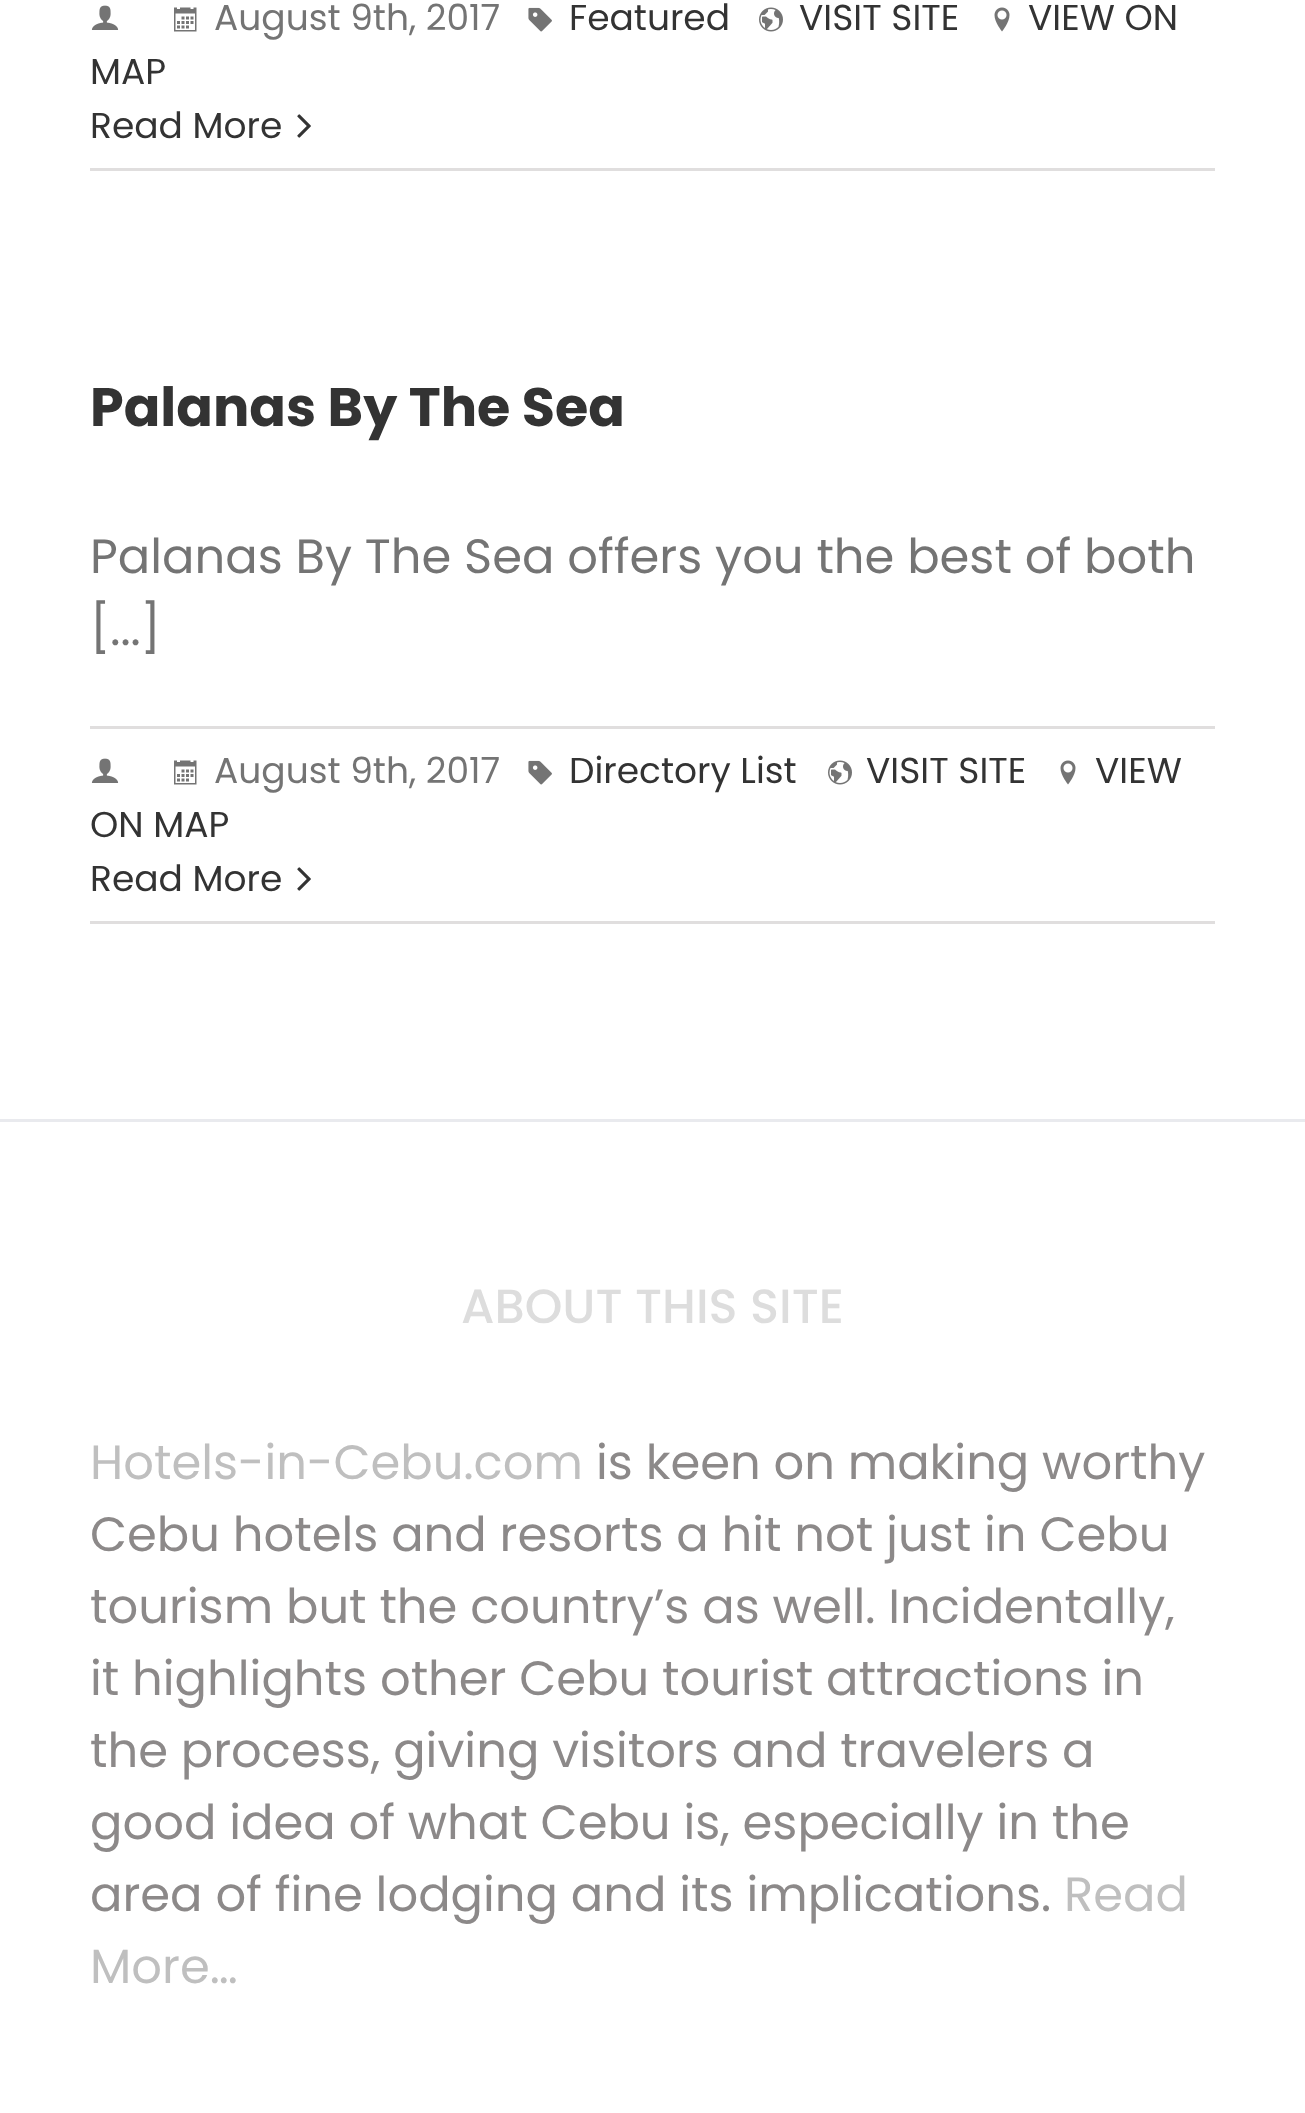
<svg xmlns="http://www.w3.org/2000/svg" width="1305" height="2113">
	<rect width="100%" height="100%" fill="#FFFFFF" />
	<rect x="90" y="168" width="1125" height="3" fill="#E0DEDE" />
	<image x="174" y="7" width="23" height="25" href="assets/img1.png" />
	<text x="214" y="30" font-family="Poppins" font-size="36" fill="#747474">August 9th, 2017</text>
	<g font-family="Poppins" font-size="36" fill="#333333">
		<text x="569" y="30">Featured</text>
		<text x="799" y="30">VISIT SITE</text>
	</g>
	<image x="994" y="7" width="16" height="25" href="assets/img2.png" />
	<g font-family="Poppins" font-size="36" fill="#333333">
		<text x="1028" y="30">VIEW ON</text>
		<text x="90" y="84">MAP</text>
	</g>
	<image x="91" y="5" width="28" height="25" href="assets/img3.png" />
	<image x="528" y="7" width="24" height="25" href="assets/img4.png" />
	<image x="759" y="7" width="24" height="25" href="assets/img5.png" />
	<text x="90" y="138" font-family="Poppins" font-size="36" fill="#333333">Read More</text>
	<image x="297" y="114" width="14" height="24" href="assets/img6.png" />
	<text x="90" y="426" font-family="Poppins" font-size="54" font-weight="700" fill="#333333">Palanas By The Sea</text>
	<g font-family="Poppins" font-size="48" fill="#747474">
		<text x="90" y="573">Palanas By The Sea offers you the best of both</text>
		<text x="90" y="645">[...]</text>
	</g>
	<rect x="90" y="726" width="1125" height="3" fill="#E0DEDE" />
	<rect x="90" y="921" width="1125" height="3" fill="#E0DEDE" />
	<image x="174" y="760" width="23" height="25" href="assets/img1.png" />
	<text x="214" y="783" font-family="Poppins" font-size="36" fill="#747474">August 9th, 2017</text>
	<g font-family="Poppins" font-size="36" fill="#333333">
		<text x="569" y="783">Directory List</text>
		<text x="866" y="783">VISIT SITE</text>
	</g>
	<image x="1060" y="760" width="16" height="25" href="assets/img2.png" />
	<g font-family="Poppins" font-size="36" fill="#333333">
		<text x="1095" y="783">VIEW</text>
		<text x="90" y="837">ON MAP</text>
	</g>
	<image x="91" y="758" width="28" height="25" href="assets/img3.png" />
	<image x="528" y="760" width="24" height="25" href="assets/img4.png" />
	<image x="828" y="760" width="24" height="25" href="assets/img5.png" />
	<text x="90" y="891" font-family="Poppins" font-size="36" fill="#333333">Read More</text>
	<image x="297" y="867" width="14" height="24" href="assets/img6.png" />
	<rect x="0" y="1119" width="1305" height="3" fill="#E9EAEE" />
	<text x="461" y="1323" font-family="Poppins" font-size="48" font-weight="500" fill="#DDDDDD">ABOUT THIS SITE</text>
	<text x="90" y="1479" font-family="Poppins" font-size="48" fill="#BFBFBF">Hotels-in-Cebu.com</text>
	<g font-family="Poppins" font-size="48" fill="#8C8989">
		<text x="596" y="1479">is keen on making worthy</text>
		<text x="90" y="1551">Cebu hotels and resorts a hit not just in Cebu</text>
		<text x="90" y="1623">tourism but the country’s as well. Incidentally,</text>
		<text x="90" y="1695">it highlights other Cebu tourist attractions in</text>
		<text x="90" y="1767">the process, giving visitors and travelers a</text>
		<text x="90" y="1839">good idea of what Cebu is, especially in the</text>
		<text x="90" y="1911">area of fine lodging and its implications.</text>
	</g>
	<g font-family="Poppins" font-size="48" fill="#BFBFBF">
		<text x="1064" y="1911">Read</text>
		<text x="90" y="1983">More…</text>
	</g>
</svg>
